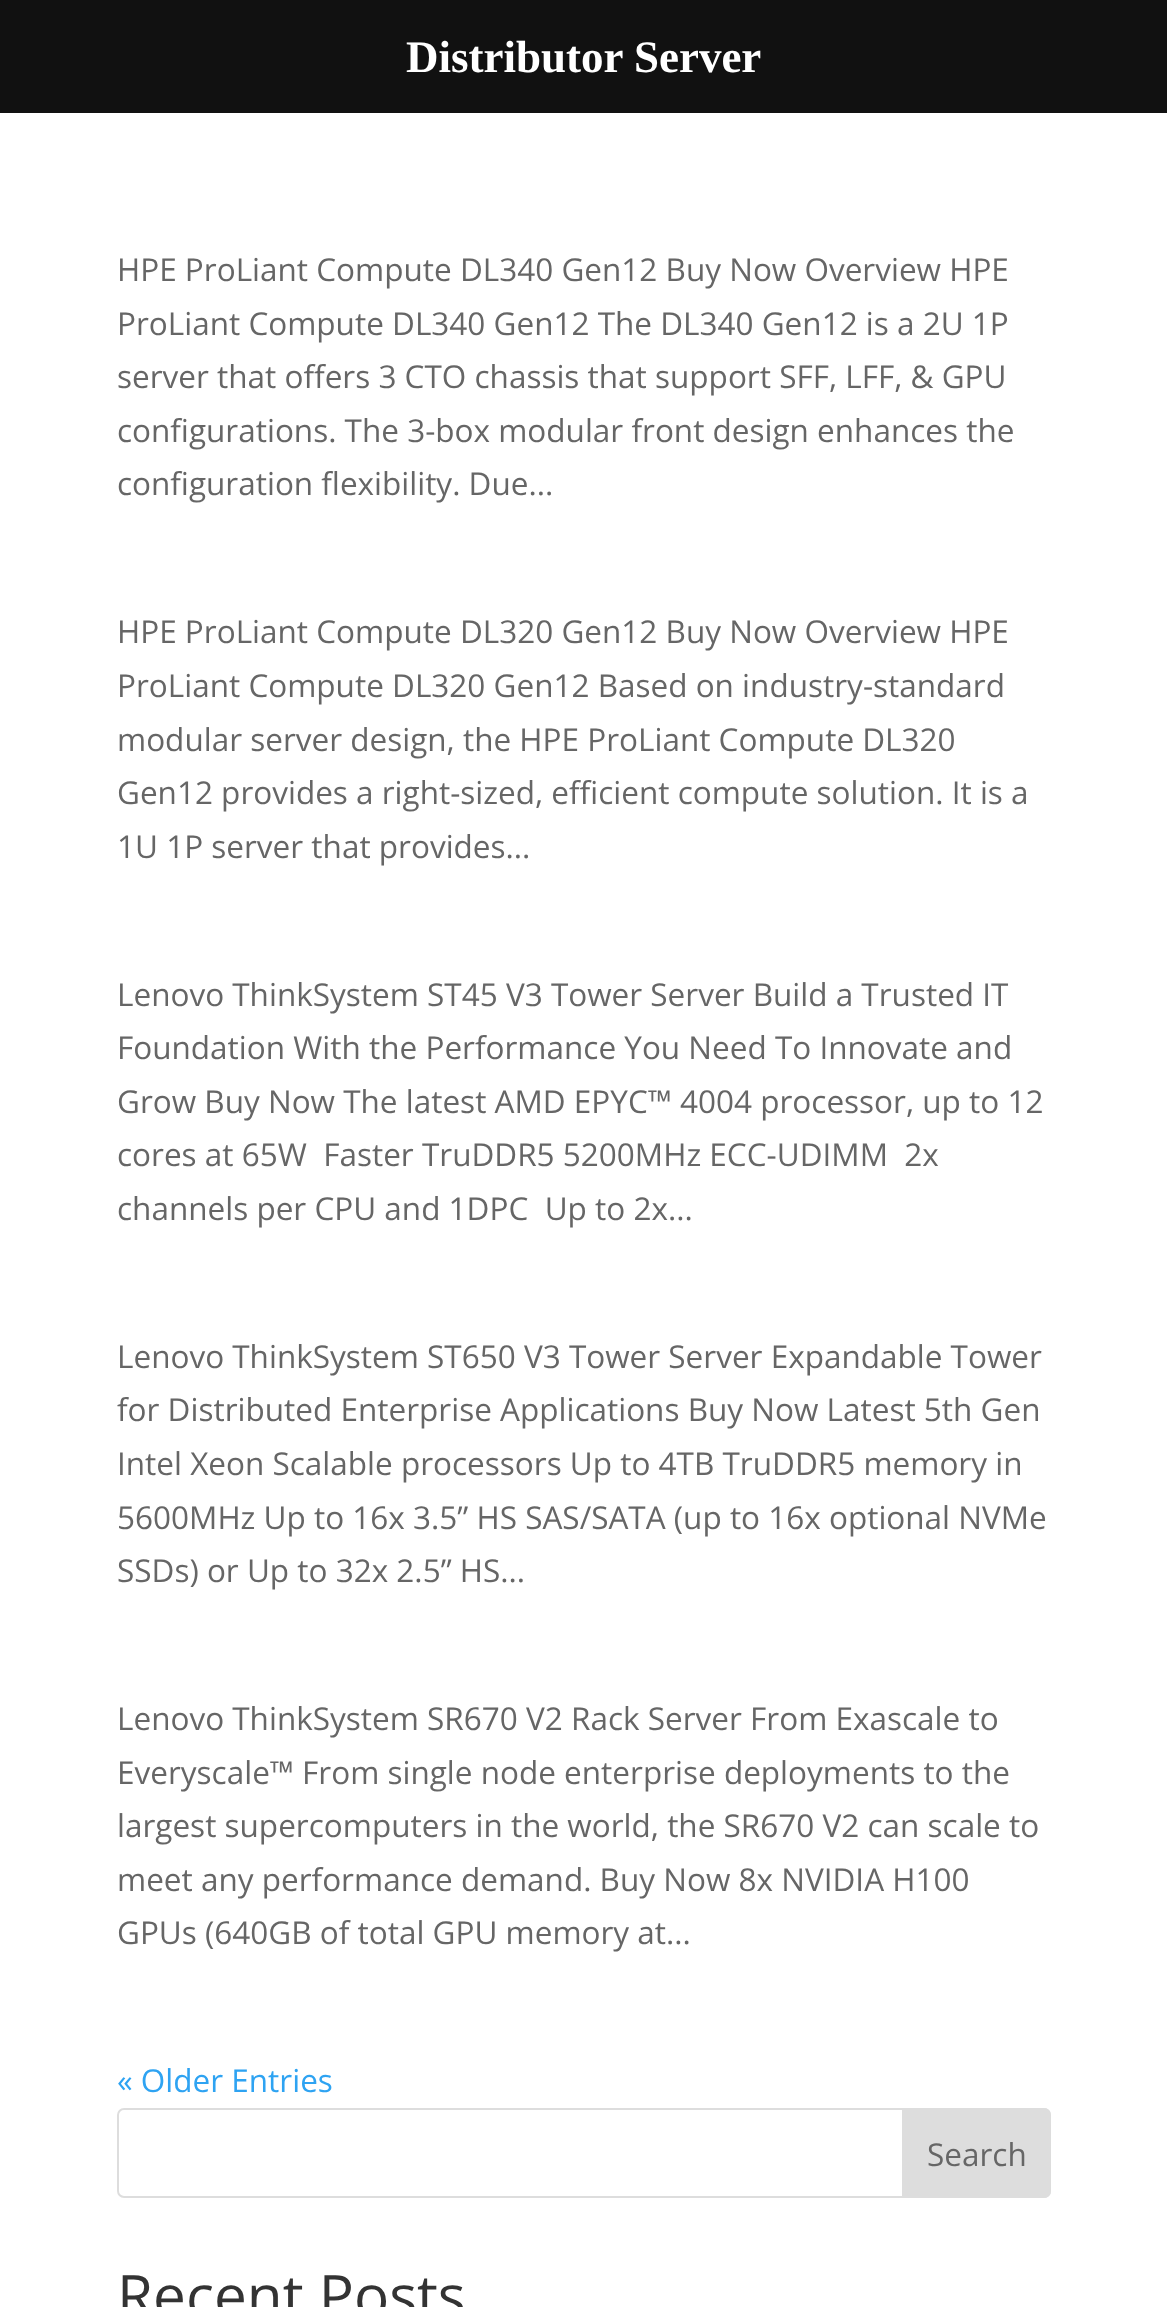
<svg xmlns="http://www.w3.org/2000/svg" width="1167" height="2307">
	<rect width="100%" height="100%" fill="#FFFFFF" />
	<rect x="0" y="0" width="1167" height="113" fill="#111111" />
	<text x="406" y="72" font-family="Liberation Serif" font-size="45" font-weight="700" fill="#FFFFFF">Distributor Server</text>
	<g font-family="Open Sans" font-size="31.5" fill="#666666">
		<text x="117" y="281">HPE ProLiant Compute DL340 Gen12 Buy Now Overview HPE</text>
		<text x="117" y="335">ProLiant Compute DL340 Gen12 The DL340 Gen12 is a 2U 1P</text>
		<text x="117" y="388">server that offers 3 CTO chassis that support SFF, LFF, &amp; GPU</text>
		<text x="117" y="442">configurations. The 3-box modular front design enhances the</text>
		<text x="117" y="495">configuration flexibility. Due...</text>
		<text x="117" y="643">HPE ProLiant Compute DL320 Gen12 Buy Now Overview HPE</text>
		<text x="117" y="697">ProLiant Compute DL320 Gen12 Based on industry-standard</text>
		<text x="117" y="751">modular server design, the HPE ProLiant Compute DL320</text>
		<text x="117" y="804">Gen12 provides a right-sized, efficient compute solution. It is a</text>
		<text x="117" y="858">1U 1P server that provides...</text>
		<text x="117" y="1006">Lenovo ThinkSystem ST45 V3 Tower Server Build a Trusted IT</text>
		<text x="117" y="1059">Foundation With the Performance You Need To Innovate and</text>
		<text x="117" y="1113">Grow Buy Now The latest AMD EPYC™ 4004 processor, up to 12</text>
		<text x="117" y="1166" xml:space="preserve">cores at 65W  Faster TruDDR5 5200MHz ECC-UDIMM  2x</text>
		<text x="117" y="1220" xml:space="preserve">channels per CPU and 1DPC  Up to 2x...</text>
		<text x="117" y="1368">Lenovo ThinkSystem ST650 V3 Tower Server Expandable Tower</text>
		<text x="117" y="1421">for Distributed Enterprise Applications Buy Now Latest 5th Gen</text>
		<text x="117" y="1475">Intel Xeon Scalable processors Up to 4TB TruDDR5 memory in</text>
		<text x="117" y="1529">5600MHz Up to 16x 3.5” HS SAS/SATA (up to 16x optional NVMe</text>
		<text x="117" y="1582">SSDs) or Up to 32x 2.5” HS...</text>
		<text x="117" y="1730">Lenovo ThinkSystem SR670 V2 Rack Server From Exascale to</text>
		<text x="117" y="1784">Everyscale™ From single node enterprise deployments to the</text>
		<text x="117" y="1837">largest supercomputers in the world, the SR670 V2 can scale to</text>
		<text x="117" y="1891">meet any performance demand. Buy Now 8x NVIDIA H100</text>
		<text x="117" y="1944">GPUs (640GB of total GPU memory at...</text>
	</g>
	<text x="117" y="2092" font-family="Open Sans" font-size="31.5" fill="#2EA3F2">« Older Entries</text>
	<rect x="118" y="2109" width="932" height="88" rx="6" fill="none" stroke="#DDDDDD" stroke-width="2" />
	<path d="M903 2109H1044C1047.5 2109 1050 2111.5 1050 2115V2191C1050 2194.5 1047.5 2197 1044 2197H903Z" fill="#DDDDDD" stroke="#DDDDDD" stroke-width="2" />
	<text x="927" y="2166" font-family="Open Sans" font-size="31.5" fill="#666666">Search</text>
	<text x="117" y="2317" font-family="Open Sans" font-size="58.5" fill="#333333">Recent Posts</text>
</svg>
